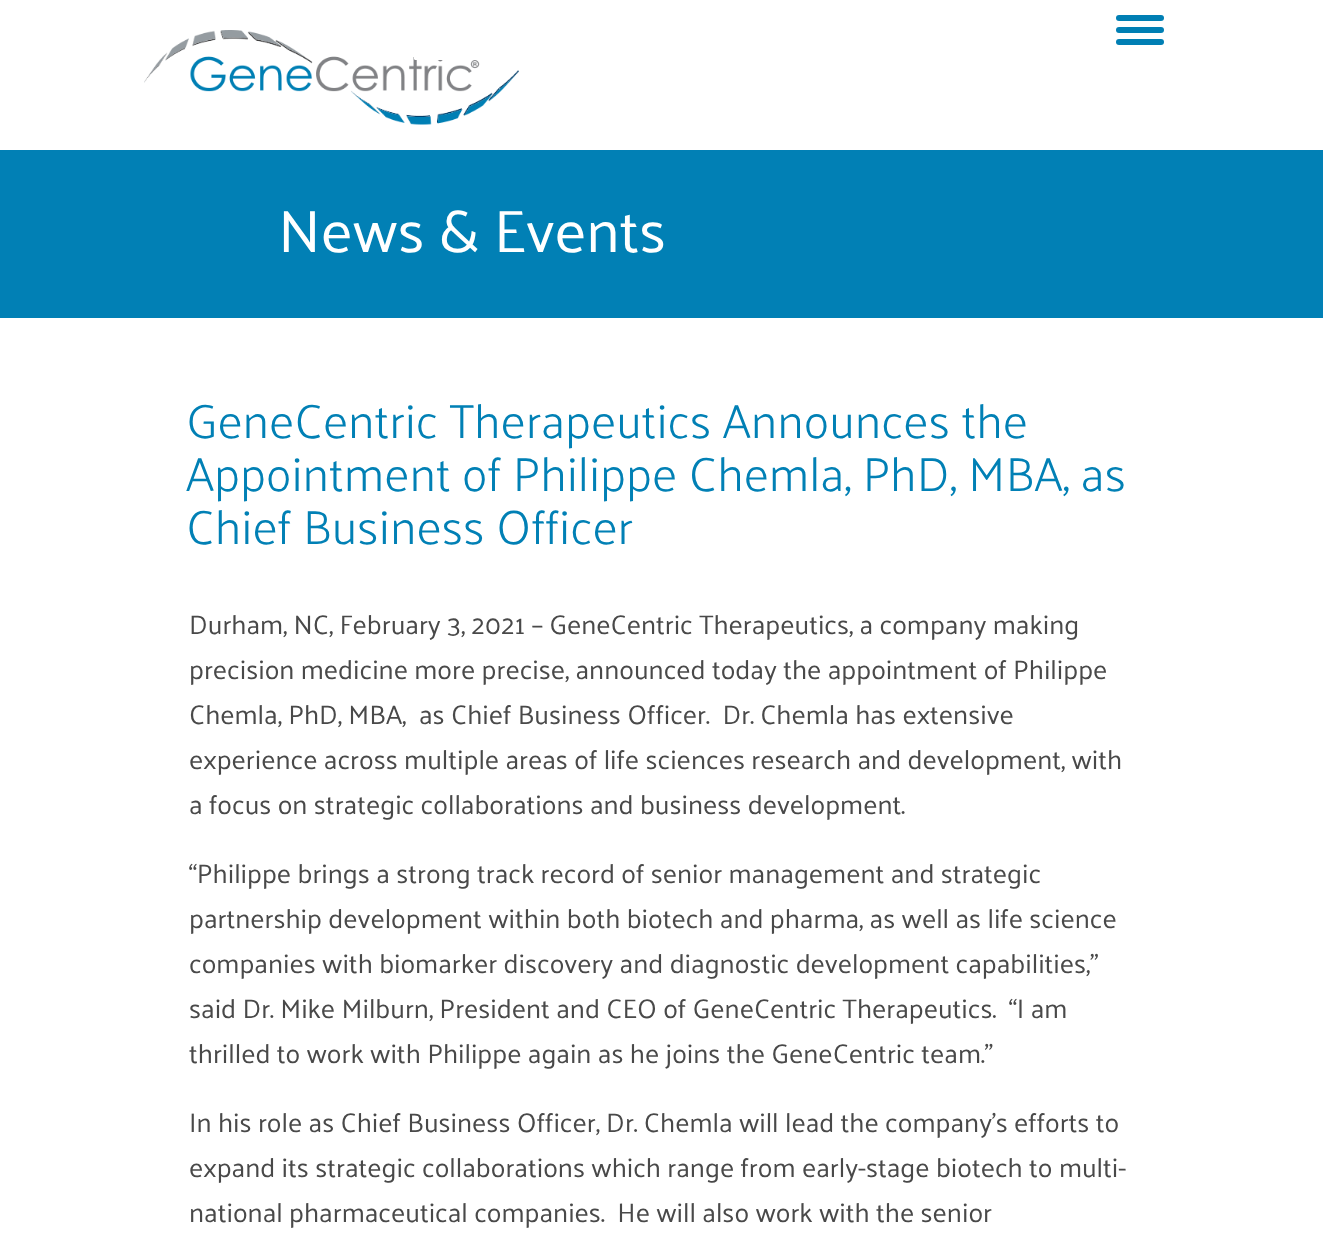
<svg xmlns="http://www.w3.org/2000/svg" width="1323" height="1246">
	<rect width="100%" height="100%" fill="#FFFFFF" />
	<image x="144" y="30" width="375" height="95" href="assets/img1.png" />
	<rect x="414" y="0" width="765" height="60" rx="1.5" fill="#FFFFFF" />
	<rect x="1116" y="15" width="48" height="6" rx="3" fill="#007FB4" />
	<rect x="1116" y="27" width="48" height="6" rx="3" fill="#007FB4" />
	<rect x="1116" y="39" width="48" height="6" rx="3" fill="#007FB4" />
	<rect x="0" y="150" width="1323" height="168" fill="#0180B5" />
	<text x="278" y="252" font-family="Palanquin" font-size="60" fill="#FFFFFF">News &amp; Events</text>
	<g font-family="Palanquin" font-size="48" font-weight="300" fill="#0180B5">
		<text x="186" y="438">GeneCentric Therapeutics Announces the</text>
		<text x="186" y="491">Appointment of Philippe Chemla, PhD, MBA, as</text>
		<text x="186" y="544">Chief Business Officer</text>
	</g>
	<g font-family="Palanquin" font-size="27" fill="#494949">
		<text x="189" y="634">Durham, NC, February 3, 2021 – GeneCentric Therapeutics, a company making</text>
		<text x="189" y="679">precision medicine more precise, announced today the appointment of Philippe</text>
		<text x="189" y="724" xml:space="preserve">Chemla, PhD, MBA,  as Chief Business Officer.  Dr. Chemla has extensive</text>
		<text x="189" y="769">experience across multiple areas of life sciences research and development, with</text>
		<text x="189" y="814">a focus on strategic collaborations and business development.</text>
		<text x="189" y="883">“Philippe brings a strong track record of senior management and strategic</text>
		<text x="189" y="928">partnership development within both biotech and pharma, as well as life science</text>
		<text x="189" y="973">companies with biomarker discovery and diagnostic development capabilities,”</text>
		<text x="189" y="1018" xml:space="preserve">said Dr. Mike Milburn, President and CEO of GeneCentric Therapeutics.  “I am</text>
		<text x="189" y="1063">thrilled to work with Philippe again as he joins the GeneCentric team.”</text>
		<text x="189" y="1132">In his role as Chief Business Officer, Dr. Chemla will lead the company’s efforts to</text>
		<text x="189" y="1177">expand its strategic collaborations which range from early-stage biotech to multi-</text>
		<text x="189" y="1222" xml:space="preserve">national pharmaceutical companies.  He will also work with the senior</text>
	</g>
</svg>
